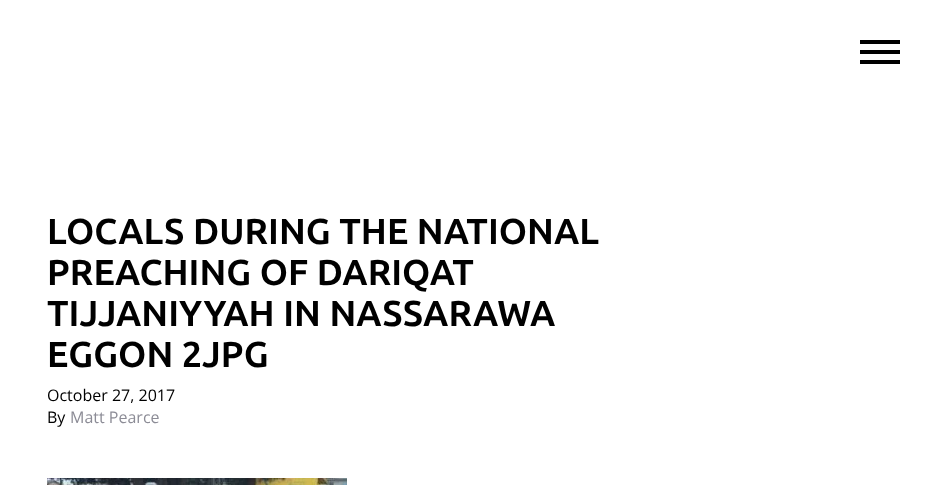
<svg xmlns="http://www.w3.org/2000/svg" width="947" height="485">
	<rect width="100%" height="100%" fill="#FFFFFF" />
	<rect x="860" y="40" width="40" height="4" fill="#000000" />
	<rect x="860" y="50" width="40" height="4" fill="#000000" />
	<rect x="860" y="60" width="40" height="4" fill="#000000" />
	<g font-family="Ubuntu" font-size="36" font-weight="700" fill="#000000">
		<text x="47" y="244">LOCALS DURING THE NATIONAL</text>
		<text x="47" y="285">PREACHING OF DARIQAT</text>
		<text x="47" y="326">TIJJANIYYAH IN NASSARAWA</text>
		<text x="47" y="367">EGGON 2JPG</text>
	</g>
	<g font-family="Open Sans" font-size="16" fill="#000000">
		<text x="47" y="401">October 27, 2017</text>
		<text x="47" y="423">By</text>
	</g>
	<text x="70" y="423" font-family="Open Sans" font-size="16" fill="#8C8C96">Matt Pearce</text>
	<image x="47" y="478" width="300" height="7" href="assets/img1.png" />
</svg>
